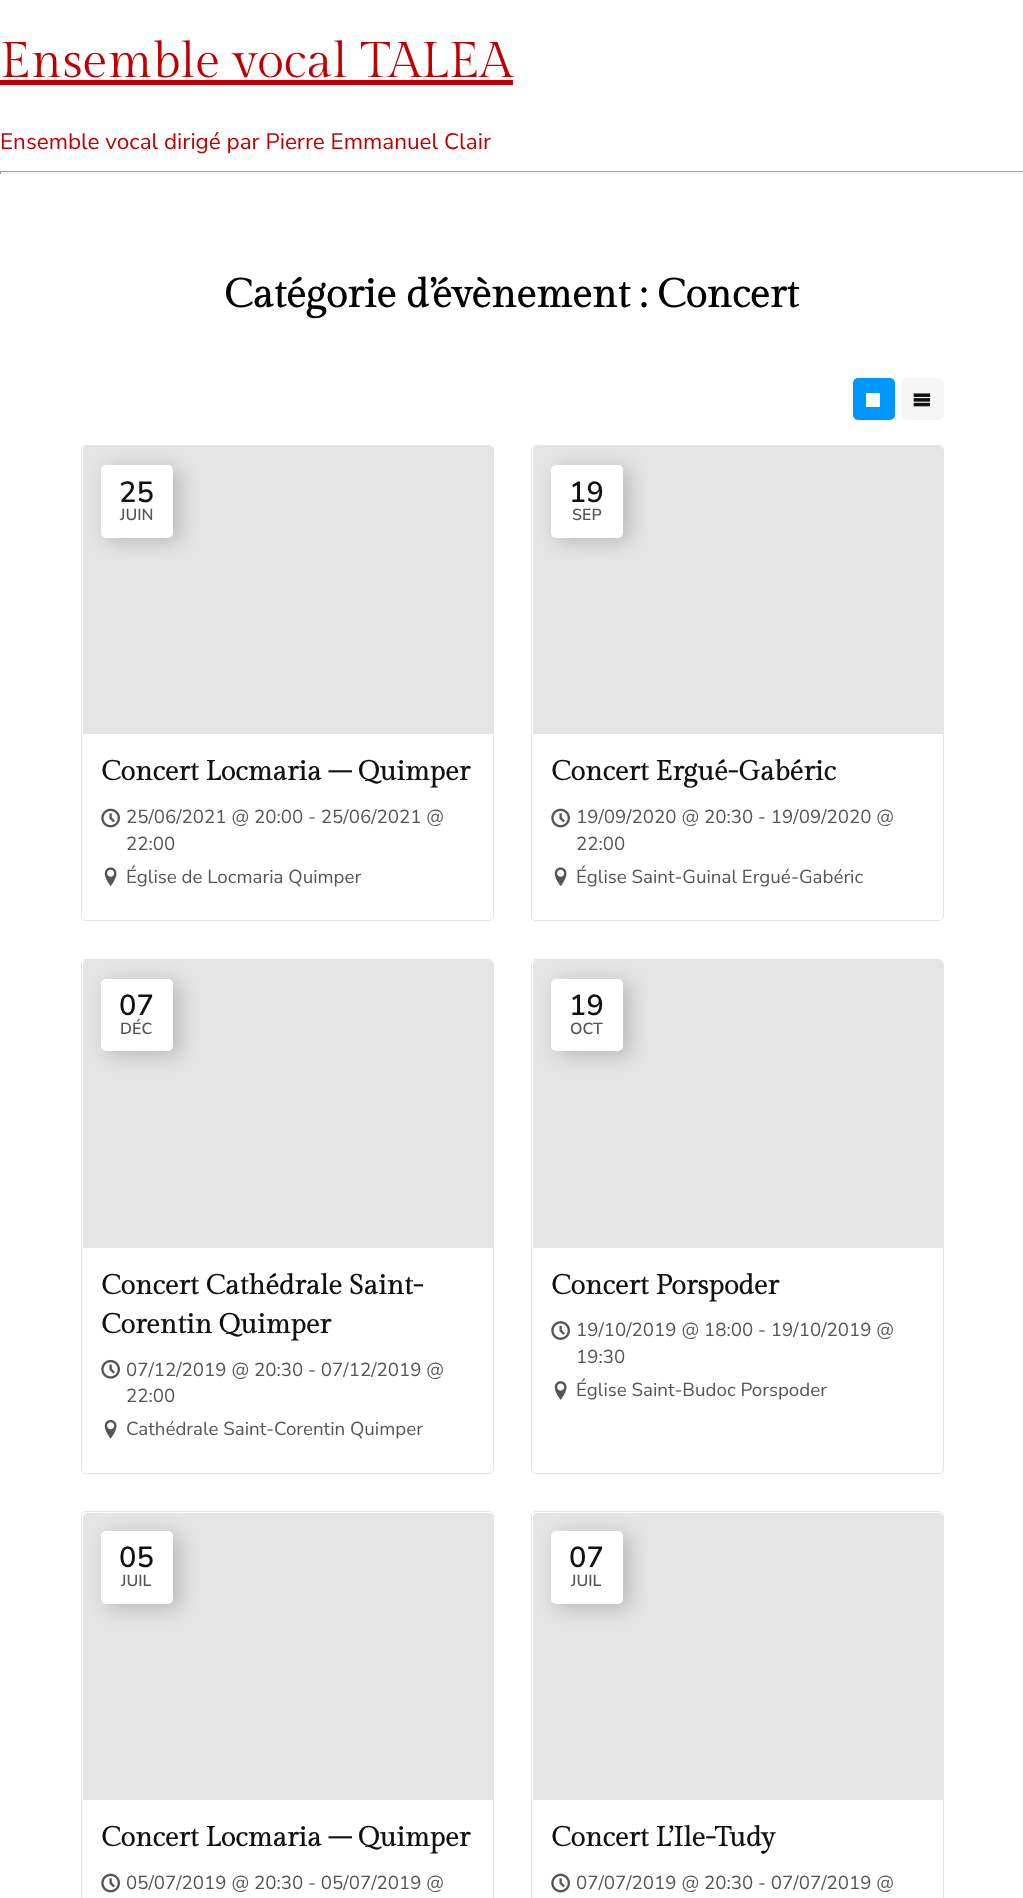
<svg xmlns="http://www.w3.org/2000/svg" width="1023" height="1898">
	<rect width="100%" height="100%" fill="#FFFFFF" />
	<text x="0" y="77" font-family="Gilda Display" font-size="50" fill="#C00000">Ensemble vocal TALEA</text>
	<rect x="0" y="80" width="513" height="5" fill="#C00000" />
	<text x="0" y="149" font-family="Nunito Sans" font-size="22.5" fill="#C00000">Ensemble vocal dirigé par Pierre Emmanuel Clair</text>
	<rect x="0" y="171" width="1023" height="1" fill="#9F9F9F" />
	<rect x="0" y="173" width="1023" height="1" fill="#EEEEEE" />
	<rect x="0" y="171" width="1" height="3" fill="#9F9F9F" />
	<text x="224" y="307" font-family="Gilda Display" font-size="40" font-weight="700" fill="#020202">Catégorie d’évènement : Concert</text>
	<rect x="853" y="378" width="42" height="42" rx="5" fill="#0096FF" />
	<rect x="866" y="393" width="14" height="14" fill="#FFFFFF" />
	<rect x="901" y="378" width="43" height="42" rx="5" fill="#F5F5F5" />
	<image x="913" y="393" width="18" height="14" href="assets/img1.png" />
	<rect x="81.5" y="445.5" width="412" height="475" rx="4.5" fill="none" stroke="#E4E4E4" />
	<path d="M87 446H489C491 446 493 448 493 450V734H83V450C83 448 85 446 87 446Z" fill="#E4E4E4" />
	<rect x="108" y="469" width="71" height="72" rx="5" fill="#000000" fill-opacity="0.2" filter="blur(9.5px)" />
	<rect x="101" y="465" width="72" height="73" rx="5" fill="#FFFFFF" />
	<text x="119" y="502" font-family="Nunito Sans" font-size="29" font-weight="600" fill="#111111">25</text>
	<text x="120" y="520" font-family="Nunito Sans" font-size="16" font-weight="600" fill="#555555">JUIN</text>
	<text x="101" y="780" font-family="Gilda Display" font-size="27.5" font-weight="700" fill="#111111">Concert Locmaria – Quimper</text>
	<image x="101" y="808" width="19" height="20" href="assets/img2.png" />
	<g font-family="Nunito Sans" font-size="18.75" fill="#555555">
		<text x="126" y="823">25/06/2021 @ 20:00 - 25/06/2021 @</text>
		<text x="126" y="850">22:00</text>
	</g>
	<image x="104" y="867" width="13" height="19" href="assets/img3.png" />
	<text x="126" y="883" font-family="Nunito Sans" font-size="18.75" fill="#555555">Église de Locmaria Quimper</text>
	<rect x="531.5" y="445.5" width="412" height="475" rx="4.5" fill="none" stroke="#E4E4E4" />
	<path d="M537 446H939C941 446 943 448 943 450V734H533V450C533 448 535 446 537 446Z" fill="#E4E4E4" />
	<rect x="558" y="469" width="71" height="72" rx="5" fill="#000000" fill-opacity="0.2" filter="blur(9.5px)" />
	<rect x="551" y="465" width="72" height="73" rx="5" fill="#FFFFFF" />
	<text x="569" y="502" font-family="Nunito Sans" font-size="29" font-weight="600" fill="#111111">19</text>
	<text x="572" y="520" font-family="Nunito Sans" font-size="16" font-weight="600" fill="#555555">SEP</text>
	<text x="551" y="780" font-family="Gilda Display" font-size="27.5" font-weight="700" fill="#111111">Concert Ergué-Gabéric</text>
	<image x="551" y="808" width="19" height="20" href="assets/img2.png" />
	<g font-family="Nunito Sans" font-size="18.75" fill="#555555">
		<text x="576" y="823">19/09/2020 @ 20:30 - 19/09/2020 @</text>
		<text x="576" y="850">22:00</text>
	</g>
	<image x="554" y="867" width="13" height="19" href="assets/img3.png" />
	<text x="576" y="883" font-family="Nunito Sans" font-size="18.75" fill="#555555">Église Saint-Guinal Ergué-Gabéric</text>
	<rect x="81.5" y="959.5" width="412" height="514" rx="4.5" fill="none" stroke="#E4E4E4" />
	<path d="M87 960H489C491 960 493 962 493 964V1248H83V964C83 962 85 960 87 960Z" fill="#E4E4E4" />
	<rect x="108" y="983" width="71" height="72" rx="5" fill="#000000" fill-opacity="0.2" filter="blur(9.5px)" />
	<rect x="101" y="979" width="72" height="72" rx="5" fill="#FFFFFF" />
	<text x="119" y="1015" font-family="Nunito Sans" font-size="29" font-weight="600" fill="#111111">07</text>
	<text x="120" y="1034" font-family="Nunito Sans" font-size="16" font-weight="600" fill="#555555">DÉC</text>
	<g font-family="Gilda Display" font-size="27.5" font-weight="700" fill="#111111">
		<text x="101" y="1294">Concert Cathédrale Saint-</text>
		<text x="101" y="1333">Corentin Quimper</text>
	</g>
	<image x="101" y="1359" width="19" height="20" href="assets/img4.png" />
	<g font-family="Nunito Sans" font-size="18.75" fill="#555555">
		<text x="126" y="1376">07/12/2019 @ 20:30 - 07/12/2019 @</text>
		<text x="126" y="1402">22:00</text>
	</g>
	<image x="104" y="1419" width="13" height="20" href="assets/img5.png" />
	<text x="126" y="1435" font-family="Nunito Sans" font-size="18.75" fill="#555555">Cathédrale Saint-Corentin Quimper</text>
	<rect x="531.5" y="959.5" width="412" height="514" rx="4.5" fill="none" stroke="#E4E4E4" />
	<path d="M537 960H939C941 960 943 962 943 964V1248H533V964C533 962 535 960 537 960Z" fill="#E4E4E4" />
	<rect x="558" y="983" width="71" height="72" rx="5" fill="#000000" fill-opacity="0.2" filter="blur(9.5px)" />
	<rect x="551" y="979" width="72" height="72" rx="5" fill="#FFFFFF" />
	<text x="569" y="1015" font-family="Nunito Sans" font-size="29" font-weight="600" fill="#111111">19</text>
	<text x="570" y="1034" font-family="Nunito Sans" font-size="16" font-weight="600" fill="#555555">OCT</text>
	<text x="551" y="1294" font-family="Gilda Display" font-size="27.5" font-weight="700" fill="#111111">Concert Porspoder</text>
	<image x="551" y="1321" width="19" height="19" href="assets/img6.png" />
	<g font-family="Nunito Sans" font-size="18.75" fill="#555555">
		<text x="576" y="1336">19/10/2019 @ 18:00 - 19/10/2019 @</text>
		<text x="576" y="1363">19:30</text>
	</g>
	<image x="554" y="1381" width="13" height="19" href="assets/img7.png" />
	<text x="576" y="1396" font-family="Nunito Sans" font-size="18.75" fill="#555555">Église Saint-Budoc Porspoder</text>
	<rect x="81.5" y="1511.5" width="412" height="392" rx="4.5" fill="none" stroke="#E4E4E4" />
	<path d="M87 1513H489C491 1513 493 1515 493 1517V1800H83V1517C83 1515 85 1513 87 1513Z" fill="#E4E4E4" />
	<rect x="108" y="1535" width="71" height="73" rx="5" fill="#000000" fill-opacity="0.2" filter="blur(9.5px)" />
	<rect x="101" y="1531" width="72" height="73" rx="5" fill="#FFFFFF" />
	<text x="119" y="1567" font-family="Nunito Sans" font-size="29" font-weight="600" fill="#111111">05</text>
	<text x="121" y="1586" font-family="Nunito Sans" font-size="16" font-weight="600" fill="#555555">JUIL</text>
	<text x="101" y="1846" font-family="Gilda Display" font-size="27.5" font-weight="700" fill="#111111">Concert Locmaria – Quimper</text>
	<image x="101" y="1873" width="19" height="20" href="assets/img2.png" />
	<text x="126" y="1889" font-family="Nunito Sans" font-size="18.75" fill="#555555">05/07/2019 @ 20:30 - 05/07/2019 @</text>
	<rect x="531.5" y="1511.5" width="412" height="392" rx="4.5" fill="none" stroke="#E4E4E4" />
	<path d="M537 1513H939C941 1513 943 1515 943 1517V1800H533V1517C533 1515 535 1513 537 1513Z" fill="#E4E4E4" />
	<rect x="558" y="1535" width="71" height="73" rx="5" fill="#000000" fill-opacity="0.2" filter="blur(9.5px)" />
	<rect x="551" y="1531" width="72" height="73" rx="5" fill="#FFFFFF" />
	<text x="569" y="1567" font-family="Nunito Sans" font-size="29" font-weight="600" fill="#111111">07</text>
	<text x="571" y="1586" font-family="Nunito Sans" font-size="16" font-weight="600" fill="#555555">JUIL</text>
	<text x="551" y="1846" font-family="Gilda Display" font-size="27.5" font-weight="700" fill="#111111">Concert L’Ile-Tudy</text>
	<image x="551" y="1873" width="19" height="20" href="assets/img2.png" />
	<text x="576" y="1889" font-family="Nunito Sans" font-size="18.75" fill="#555555">07/07/2019 @ 20:30 - 07/07/2019 @</text>
</svg>
